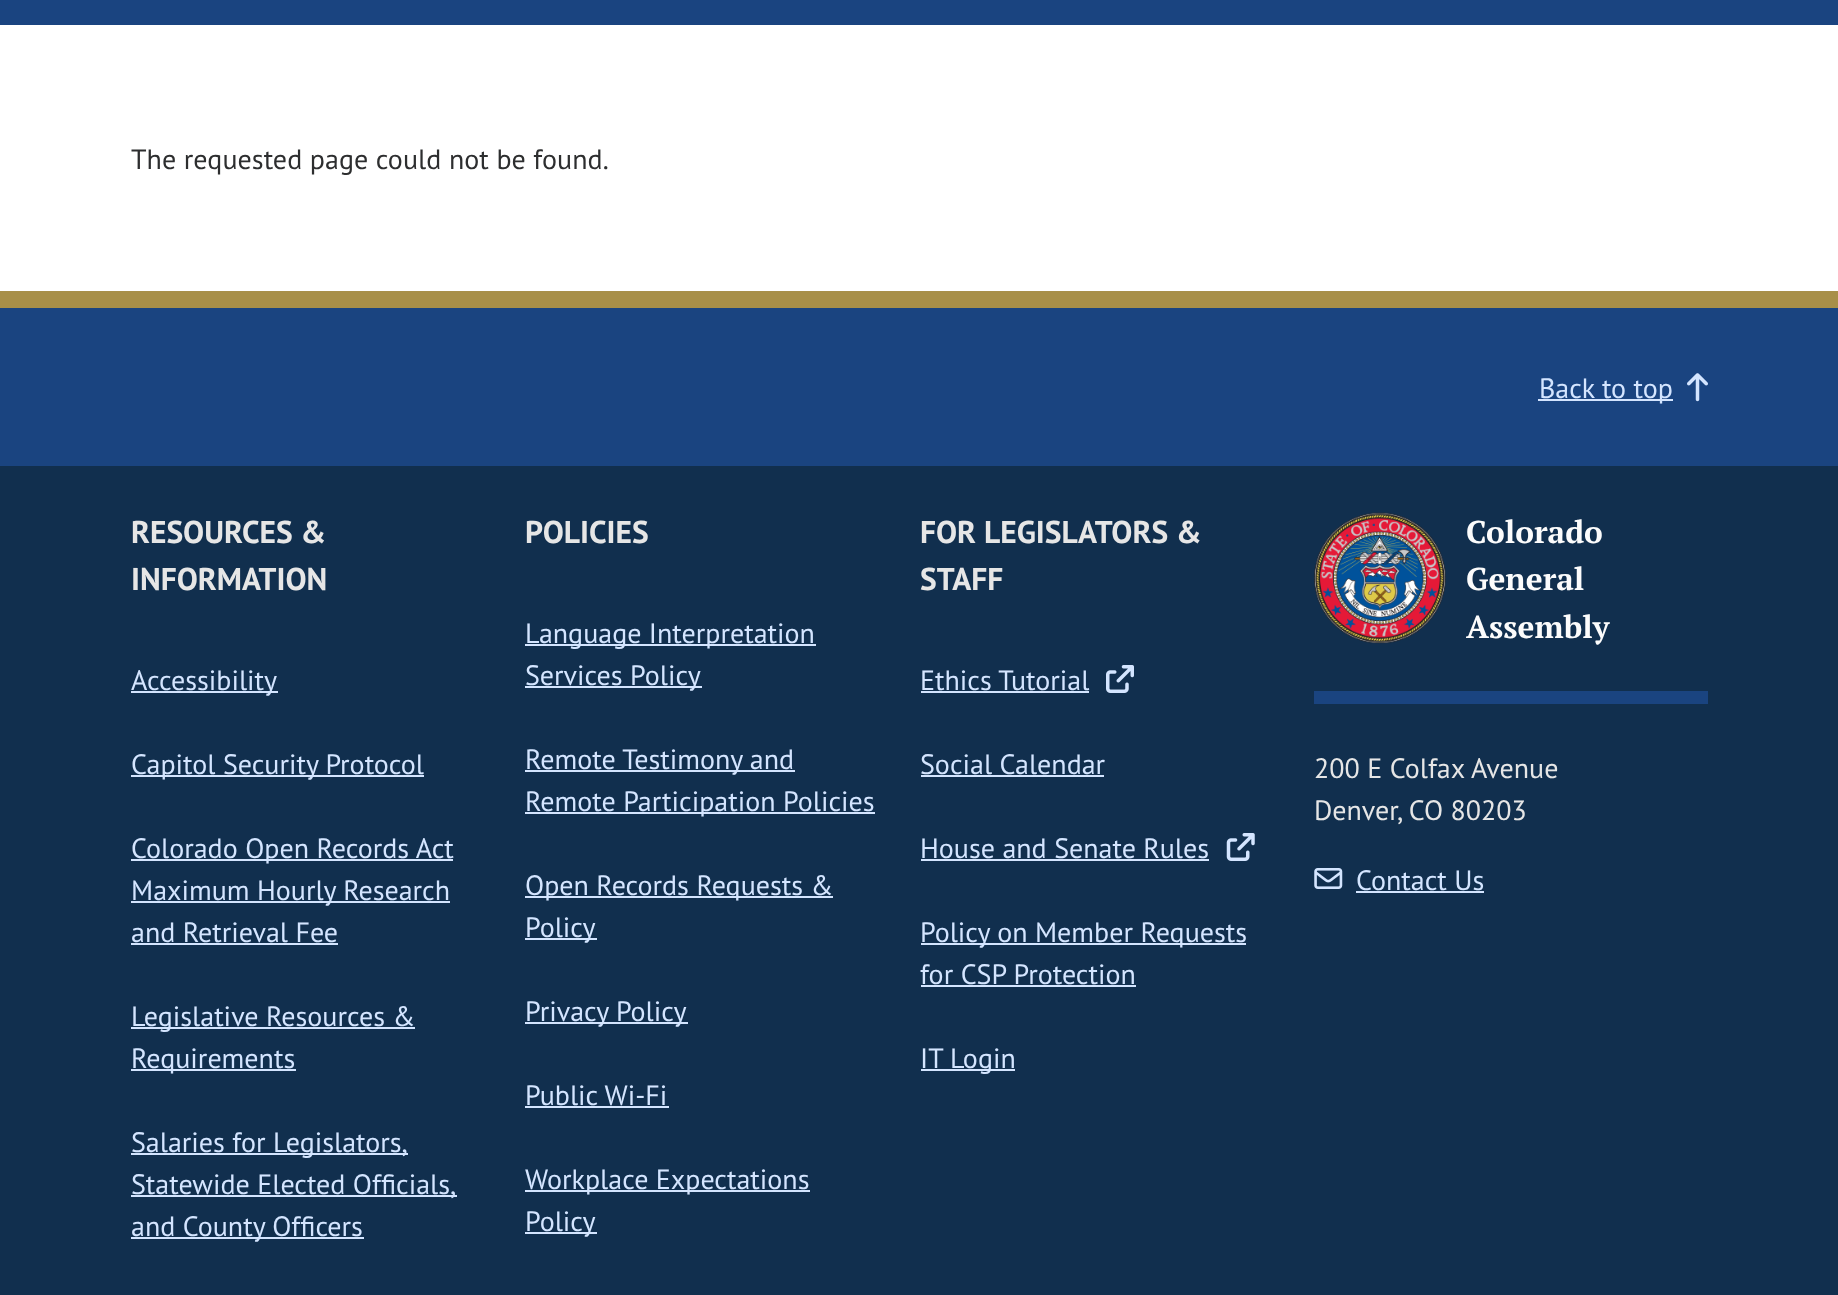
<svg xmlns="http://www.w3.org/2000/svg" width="1838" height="1295">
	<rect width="100%" height="100%" fill="#FFFFFF" />
	<rect x="0" y="0" width="1838" height="25" fill="#1A4480" />
	<text x="131" y="169" font-family="PT Sans" font-size="28" letter-spacing="0.05" fill="#2D2E2F">The requested page could not be found.</text>
	<rect x="0" y="308" width="1838" height="158" fill="#1A4480" />
	<rect x="0" y="291" width="1838" height="17" fill="#A88F48" />
	<rect x="1538" y="399" width="135" height="2" fill="#D4E5FF" />
	<text x="1539" y="398" font-family="PT Sans" font-size="28" fill="#D4E5FF">Back to top</text>
	<image x="1687" y="373" width="21" height="29" href="assets/img1.png" />
	<rect x="0" y="466" width="1838" height="829" fill="#112F4E" />
	<g font-family="PT Sans" font-size="31.5" font-weight="700" fill="#E6E6E6">
		<text x="131" y="543">RESOURCES &amp;</text>
		<text x="131" y="590">INFORMATION</text>
	</g>
	<rect x="131" y="691" width="147" height="2" fill="#D4E5FF" />
	<text x="131" y="690" font-family="PT Sans" font-size="28" fill="#D4E5FF">Accessibility</text>
	<rect x="131" y="775" width="293" height="2" fill="#D4E5FF" />
	<text x="131" y="774" font-family="PT Sans" font-size="28" fill="#D4E5FF">Capitol Security Protocol</text>
	<rect x="131" y="859" width="322" height="2" fill="#D4E5FF" />
	<text x="131" y="858" font-family="PT Sans" font-size="28" fill="#D4E5FF">Colorado Open Records Act</text>
	<rect x="131" y="901" width="319" height="2" fill="#D4E5FF" />
	<g font-family="PT Sans" font-size="28" fill="#D4E5FF">
		<text x="131" y="900">Maximum Hourly Research</text>
		<text x="131" y="942">and Retrieval Fee</text>
	</g>
	<rect x="131" y="943" width="207" height="2" fill="#D4E5FF" />
	<rect x="131" y="1027" width="284" height="2" fill="#D4E5FF" />
	<text x="131" y="1026" font-family="PT Sans" font-size="28" fill="#D4E5FF">Legislative Resources &amp;</text>
	<rect x="131" y="1069" width="165" height="2" fill="#D4E5FF" />
	<text x="131" y="1068" font-family="PT Sans" font-size="28" fill="#D4E5FF">Requirements</text>
	<rect x="131" y="1153" width="277" height="2" fill="#D4E5FF" />
	<text x="131" y="1152" font-family="PT Sans" font-size="28" fill="#D4E5FF">Salaries for Legislators,</text>
	<rect x="131" y="1195" width="326" height="2" fill="#D4E5FF" />
	<text x="131" y="1194" font-family="PT Sans" font-size="28" fill="#D4E5FF">Statewide Elected Officials,</text>
	<rect x="131" y="1237" width="233" height="2" fill="#D4E5FF" />
	<text x="131" y="1236" font-family="PT Sans" font-size="28" fill="#D4E5FF">and County Officers</text>
	<text x="525" y="543" font-family="PT Sans" font-size="31.5" font-weight="700" fill="#E6E6E6">POLICIES</text>
	<rect x="525" y="644" width="291" height="2" fill="#D4E5FF" />
	<text x="525" y="643" font-family="PT Sans" font-size="28" fill="#D4E5FF">Language Interpretation</text>
	<rect x="525" y="686" width="177" height="2" fill="#D4E5FF" />
	<text x="525" y="685" font-family="PT Sans" font-size="28" fill="#D4E5FF">Services Policy</text>
	<rect x="525" y="770" width="270" height="2" fill="#D4E5FF" />
	<text x="525" y="769" font-family="PT Sans" font-size="28" fill="#D4E5FF">Remote Testimony and</text>
	<rect x="525" y="812" width="350" height="2" fill="#D4E5FF" />
	<text x="525" y="811" font-family="PT Sans" font-size="28" fill="#D4E5FF">Remote Participation Policies</text>
	<rect x="525" y="896" width="308" height="2" fill="#D4E5FF" />
	<text x="525" y="895" font-family="PT Sans" font-size="28" fill="#D4E5FF">Open Records Requests &amp;</text>
	<rect x="525" y="938" width="72" height="2" fill="#D4E5FF" />
	<text x="525" y="937" font-family="PT Sans" font-size="28" fill="#D4E5FF">Policy</text>
	<rect x="525" y="1022" width="163" height="2" fill="#D4E5FF" />
	<g font-family="PT Sans" font-size="28" fill="#D4E5FF">
		<text x="525" y="1021">Privacy Policy</text>
		<text x="525" y="1105">Public Wi-Fi</text>
	</g>
	<rect x="525" y="1106" width="144" height="2" fill="#D4E5FF" />
	<rect x="525" y="1190" width="285" height="2" fill="#D4E5FF" />
	<text x="525" y="1189" font-family="PT Sans" font-size="28" fill="#D4E5FF">Workplace Expectations</text>
	<rect x="525" y="1232" width="72" height="2" fill="#D4E5FF" />
	<text x="525" y="1231" font-family="PT Sans" font-size="28" fill="#D4E5FF">Policy</text>
	<g font-family="PT Sans" font-size="31.5" font-weight="700" fill="#E6E6E6">
		<text x="920" y="543">FOR LEGISLATORS &amp;</text>
		<text x="920" y="590">STAFF</text>
	</g>
	<text x="920" y="690" font-family="PT Sans" font-size="28" fill="#D4E5FF">Ethics Tutorial</text>
	<rect x="921" y="691" width="168" height="2" fill="#D4E5FF" />
	<image x="1106" y="665" width="28" height="28" href="assets/img2.png" />
	<text x="920" y="774" font-family="PT Sans" font-size="28" fill="#D4E5FF">Social Calendar</text>
	<rect x="921" y="775" width="183" height="2" fill="#D4E5FF" />
	<text x="920" y="858" font-family="PT Sans" font-size="28" fill="#D4E5FF">House and Senate Rules</text>
	<rect x="921" y="859" width="288" height="2" fill="#D4E5FF" />
	<image x="1226" y="833" width="29" height="28" href="assets/img3.png" />
	<rect x="921" y="943" width="325" height="2" fill="#D4E5FF" />
	<g font-family="PT Sans" font-size="28" fill="#D4E5FF">
		<text x="920" y="942">Policy on Member Requests</text>
		<text x="920" y="984">for CSP Protection</text>
	</g>
	<rect x="921" y="985" width="215" height="2" fill="#D4E5FF" />
	<rect x="921" y="1069" width="94" height="2" fill="#D4E5FF" />
	<text x="920" y="1068" font-family="PT Sans" font-size="28" fill="#D4E5FF">IT Login</text>
	<image x="1314" y="512" width="132" height="132" href="assets/img4.png" />
	<g font-family="PT Serif" font-size="31.5" font-weight="700" letter-spacing="0.05" fill="#FCFCFC">
		<text x="1466" y="543">Colorado</text>
		<text x="1466" y="590">General</text>
		<text x="1466" y="638">Assembly</text>
	</g>
	<rect x="1314" y="691" width="394" height="13" fill="#1A4480" />
	<g font-family="PT Sans" font-size="28" fill="#E6E6E6">
		<text x="1314" y="778">200 E Colfax Avenue</text>
		<text x="1314" y="820">Denver, CO 80203</text>
	</g>
	<image x="1314" y="868" width="29" height="21" href="assets/img5.png" />
	<text x="1356" y="890" font-family="PT Sans" font-size="28" fill="#D4E5FF">Contact Us</text>
	<rect x="1356" y="891" width="128" height="2" fill="#D4E5FF" />
</svg>
